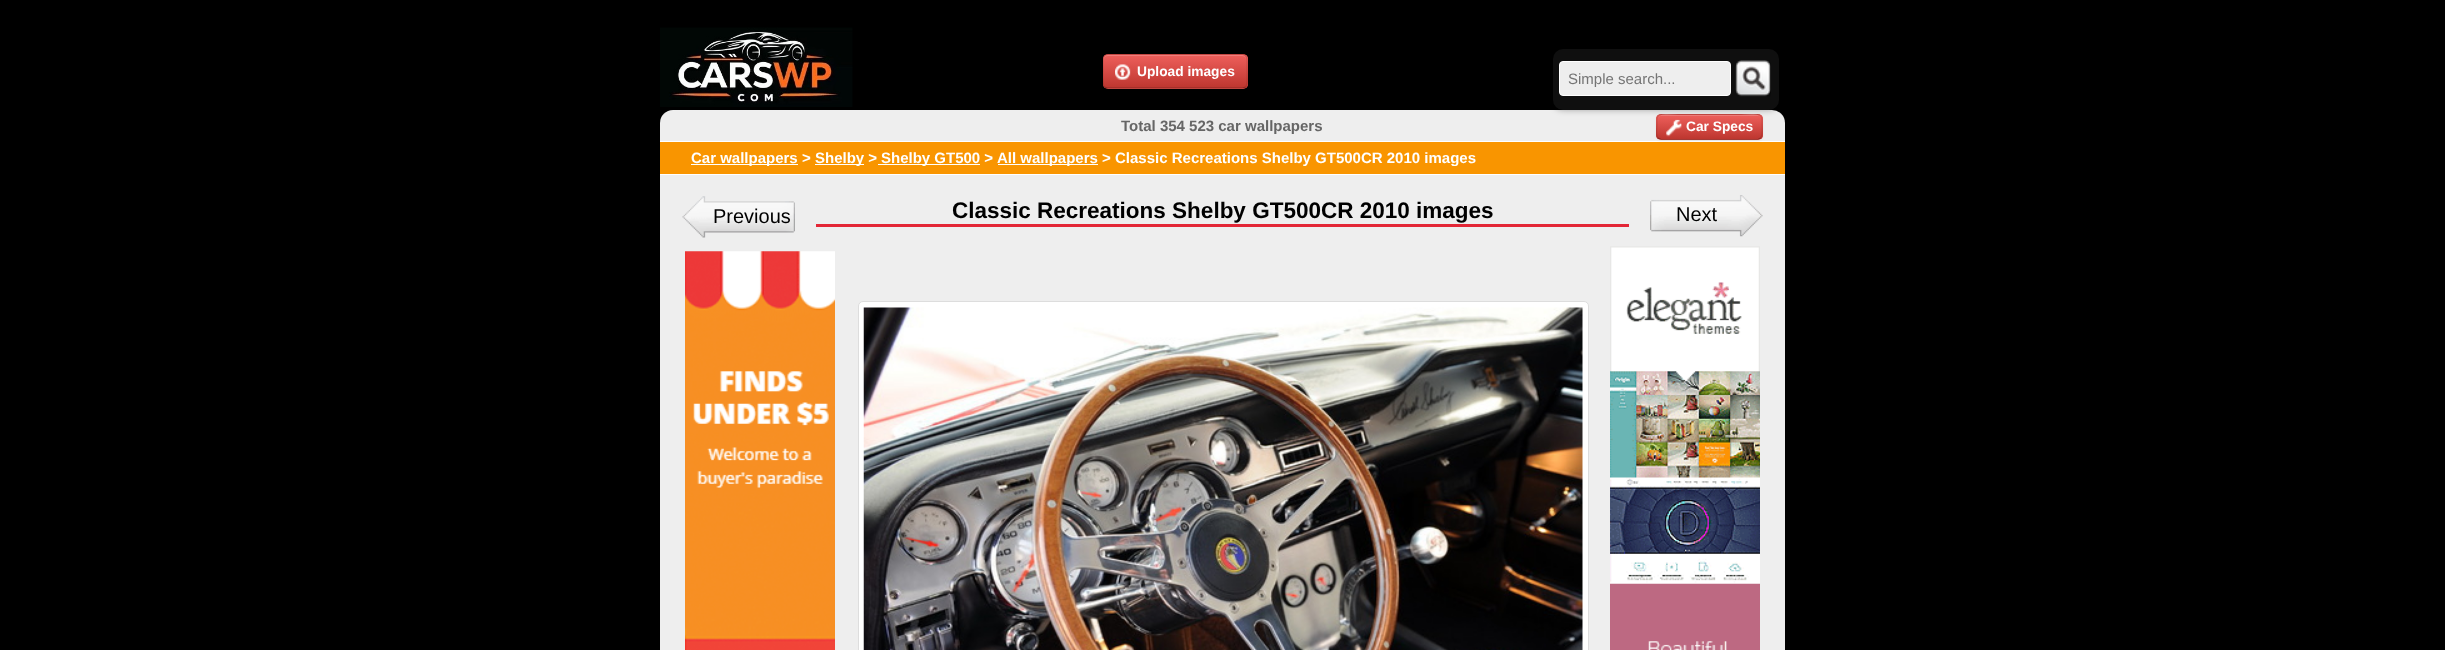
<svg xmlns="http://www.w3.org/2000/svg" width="2445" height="650">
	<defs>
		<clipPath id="clip1"><rect x="1103" y="54" width="145" height="35" rx="5" /></clipPath>
		<linearGradient id="g1" gradientUnits="userSpaceOnUse" x1="1175" y1="55" x2="1175" y2="88"><stop offset="0" stop-color="#EE5F5B" /><stop offset="1" stop-color="#BD362F" /></linearGradient>
		<clipPath id="clip2"><rect x="1656" y="114" width="107" height="26" rx="5" /></clipPath>
		<linearGradient id="g2" gradientUnits="userSpaceOnUse" x1="1709" y1="115" x2="1709" y2="139"><stop offset="0" stop-color="#EE5F5B" /><stop offset="1" stop-color="#BD362F" /></linearGradient>
		<clipPath id="clip3"><rect x="660" y="149" width="1156" height="17" /></clipPath>
	</defs>
	<rect width="100%" height="100%" fill="#000000" />
	<image x="660" y="27" width="193" height="80" href="assets/img1.png" />
	<rect x="1103" y="54" width="145" height="35" rx="5" fill="#DA4F49" />
	<g clip-path="url(#clip1)">
		<rect x="1103" y="55" width="145" height="33" fill="url(#g1)" />
	</g>
	<path d="M1108 56H1242C1245 56 1246 58 1246 60V59C1246 57 1244 55 1242 55H1108C1106 55 1104 57 1104 59V60C1104 58 1105 56 1108 56Z" fill="#F17E7B" />
	<path d="M1245.5 87L1242.5 88H1107L1104.5 87" fill="none" stroke="#000000" stroke-opacity="0.25" stroke-width="1.2" />
	<path d="M1104.5 87C1102 84.5 1103 74.5 1103 71V63C1103 59.5 1102.5 54.5 1107.5 54.5H1242.5C1247.5 54.5 1247 59.5 1247 63V71C1247 74.5 1248 84.5 1245.5 87" fill="none" stroke="#000000" stroke-opacity="0.1" stroke-width="1.2" />
	<image x="1115" y="64" width="16" height="16" href="assets/img2.png" />
	<text x="1137" y="76" font-family="Liberation Sans" font-size="13.75" font-weight="700" fill="#FFFFFF">Upload images</text>
	<rect x="660" y="110" width="1125" height="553" rx="13" fill="#EEEEEE" />
	<rect x="660" y="142" width="1125" height="32" fill="#F99500" />
	<rect x="660" y="141" width="1125" height="1" fill="#FFFFFF" />
	<rect x="1656" y="115" width="107" height="26" rx="5" fill="#000000" fill-opacity="0.05" filter="blur(1px)" />
	<rect x="1656" y="114" width="107" height="26" rx="5" fill="#DA4F49" />
	<g clip-path="url(#clip2)">
		<rect x="1656" y="115" width="107" height="24" fill="url(#g2)" />
	</g>
	<path d="M1661 116H1758C1760 116 1761 118 1761 120C1761 111 1745 115 1741 115H1678C1674 115 1658 111 1658 120C1658 118 1659 116 1661 116Z" fill="#FFFFFF" fill-opacity="0.2" />
	<path d="M1760.5 138L1758 139.5H1661L1658 138" fill="none" stroke="#000000" stroke-opacity="0.25" stroke-width="1.2" />
	<path d="M1658 138C1655.5 135.5 1657 127.5 1657 124C1657 121 1656 114.5 1661 114.5H1757.5C1763 114.5 1762 121 1762 124C1762 127.5 1763 135.5 1760.5 138" fill="none" stroke="#000000" stroke-opacity="0.1" stroke-width="1.2" />
	<image x="1666" y="119" width="16" height="18" href="assets/img4.png" />
	<rect x="1553" y="49" width="226" height="61" rx="10" fill="#000000" fill-opacity="0.3" filter="blur(3px)" />
	<rect x="1553" y="49" width="226" height="61" rx="10" fill="#0F0F0F" />
	<rect x="1559.5" y="61.5" width="171" height="34" rx="3.5" fill="#EEEEEE" stroke="#FFFFFF" />
	<text x="1568" y="84" font-family="Liberation Sans" font-size="15" fill="#757575">Simple search...</text>
	<image x="1735" y="60" width="36" height="37" href="assets/img3.png" />
	<text x="1121" y="131" font-family="Liberation Sans" font-size="15" font-weight="700" fill="#666666">Total 354 523 car wallpapers</text>
	<text x="1686" y="131" font-family="Liberation Sans" font-size="13.75" font-weight="700" fill="#FFFFFF">Car Specs</text>
	<rect x="660" y="174" width="1125" height="1" fill="#FFFFFF" />
	<rect x="691" y="164" width="107" height="1" fill="#FFFFFF" />
	<g clip-path="url(#clip3)">
		<text x="691" y="163" font-family="Liberation Sans" font-size="15" font-weight="700" fill="#FFFFFF">Car wallpapers</text>
	</g>
	<text x="802" y="163" font-family="Liberation Sans" font-size="15" font-weight="700" fill="#FFFFFF">&gt;</text>
	<rect x="815" y="164" width="49" height="1" fill="#FFFFFF" />
	<text x="815" y="163" font-family="Liberation Sans" font-size="15" font-weight="700" fill="#FFFFFF">Shelby &gt;</text>
	<rect x="878" y="164" width="102" height="1" fill="#FFFFFF" />
	<text x="881" y="163" font-family="Liberation Sans" font-size="15" font-weight="700" fill="#FFFFFF">Shelby GT500 &gt;</text>
	<rect x="998" y="164" width="100" height="1" fill="#FFFFFF" />
	<g clip-path="url(#clip3)">
		<text x="997" y="163" font-family="Liberation Sans" font-size="15" font-weight="700" fill="#FFFFFF">All wallpapers</text>
	</g>
	<text x="1102" y="163" font-family="Liberation Sans" font-size="15" font-weight="700" fill="#FFFFFF">&gt;</text>
	<g clip-path="url(#clip3)">
		<text x="1115" y="163" font-family="Liberation Sans" font-size="15" font-weight="700" fill="#FFFFFF">Classic Recreations Shelby GT500CR 2010 images</text>
	</g>
	<image x="682" y="196" width="113" height="42" href="assets/img5.png" />
	<text x="713" y="223" font-family="Liberation Sans" font-size="20" fill="#000000">Previous</text>
	<rect x="816" y="224" width="813" height="3" fill="#E32636" />
	<text x="952" y="218" font-family="Liberation Sans" font-size="22.5" font-weight="700" fill="#000000">Classic Recreations Shelby GT500CR 2010 images</text>
	<image x="1650" y="195" width="113" height="42" href="assets/img6.png" />
	<text x="1676" y="221" font-family="Liberation Sans" font-size="20" fill="#000000">Next</text>
	<image x="685" y="251" width="150" height="399" href="assets/img7.png" />
	<rect x="858.5" y="301.5" width="730" height="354" rx="4.5" fill="#FFFFFF" stroke="#DDDDDD" />
	<image x="863" y="307" width="720" height="343" href="assets/img8.png" />
	<image x="1610" y="246" width="150" height="404" href="assets/img9.png" />
</svg>
